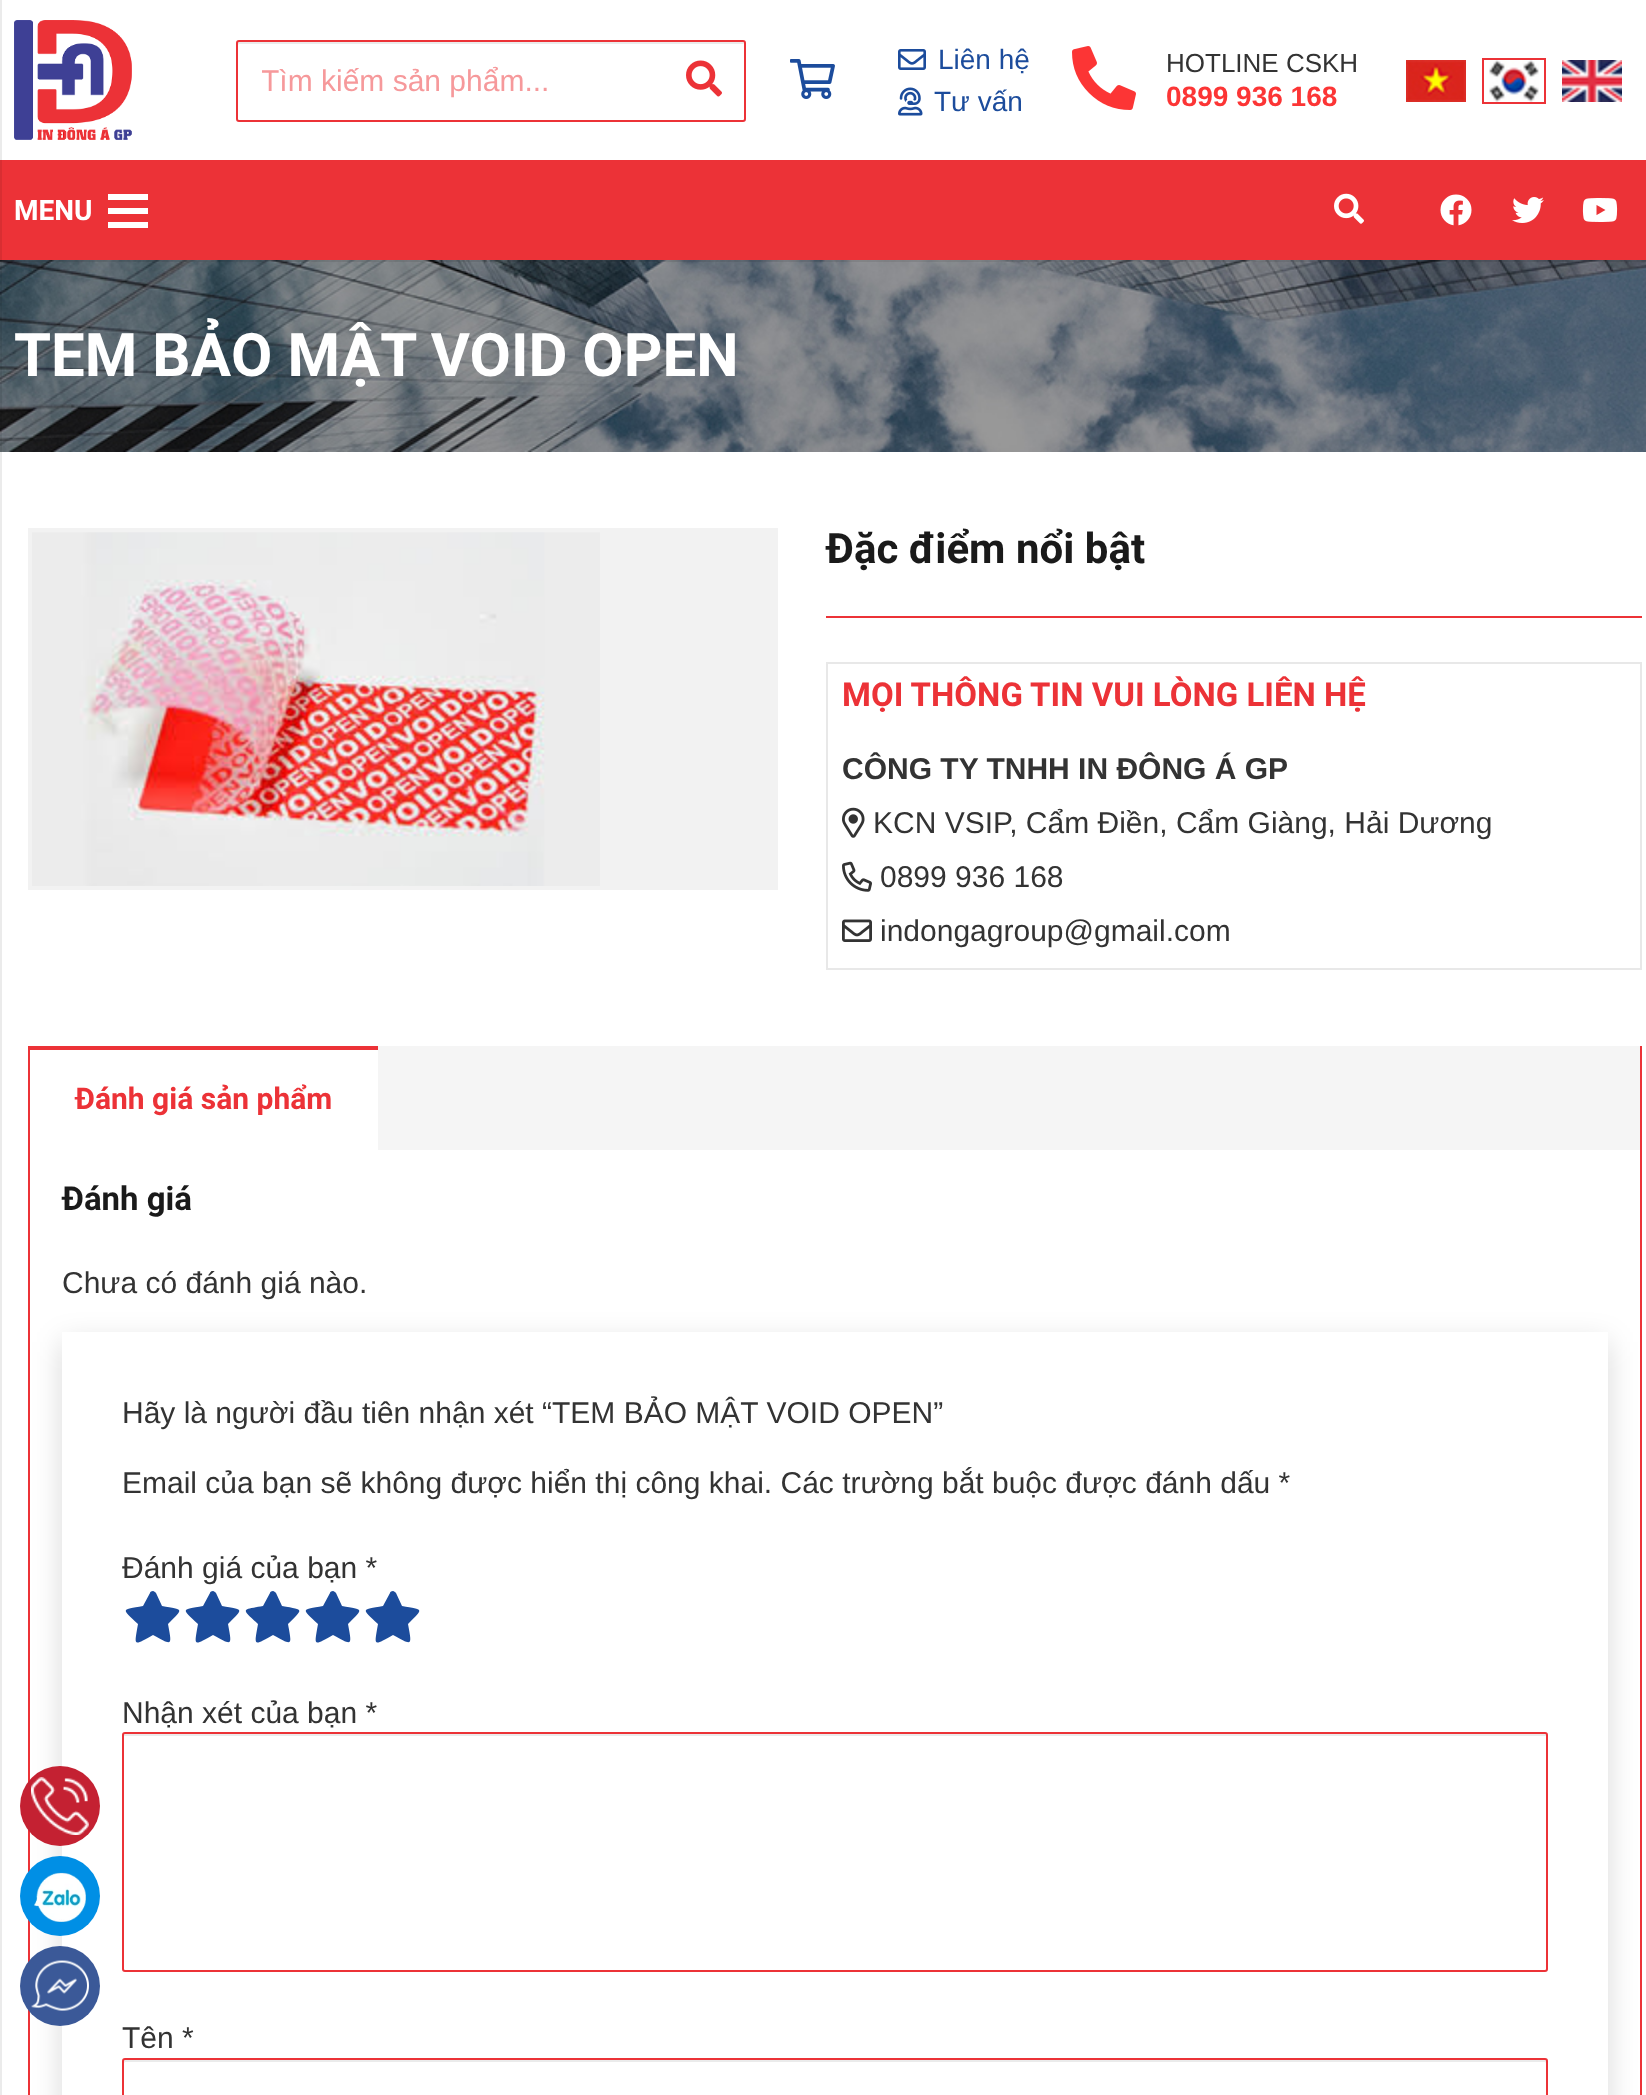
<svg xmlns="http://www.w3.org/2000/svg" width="1646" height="2095">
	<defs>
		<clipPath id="clip1"><rect x="262" y="64" width="398" height="34" /></clipPath>
		<clipPath id="clip2"><path d="M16 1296H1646V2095H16ZM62 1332H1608V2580H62Z" clip-rule="evenodd" /></clipPath>
	</defs>
	<rect width="100%" height="100%" fill="#FFFFFF" />
	<image x="14" y="20" width="118" height="120" href="assets/img1.png" />
	<path d="M239 44H744L743 42H238V45Z" fill="#EBEBEB" />
	<rect x="237" y="41" width="508" height="80" rx="2" fill="none" stroke="#EC3237" stroke-width="2" />
	<g clip-path="url(#clip1)">
		<text x="261" y="91" font-family="Liberation Sans" font-size="30" fill="#F6999B">Tìm kiếm sản phẩm...</text>
	</g>
	<image x="686" y="60" width="36" height="37" href="assets/img2.png" />
	<image x="790" y="59" width="45" height="40" href="assets/img3.png" />
	<image x="898" y="49" width="28" height="21" href="assets/img4.png" />
	<text x="938" y="69" font-family="Liberation Sans" font-size="28" fill="#1C4C9C">Liên hệ</text>
	<image x="898" y="87" width="25" height="29" href="assets/img5.png" />
	<text x="934" y="111" font-family="Liberation Sans" font-size="28" fill="#1C4C9C">Tư vấn</text>
	<image x="1072" y="46" width="64" height="64" href="assets/img6.png" />
	<text x="1166" y="72" font-family="Liberation Sans" font-size="26" fill="#333333">HOTLINE CSKH</text>
	<text x="1166" y="106" font-family="Liberation Sans" font-size="28" font-weight="700" fill="#FC3535">0899 936 168</text>
	<image x="1406" y="60" width="60" height="42" href="assets/img7.png" />
	<image x="1489" y="60" width="50" height="42" href="assets/img8.png" />
	<rect x="1483" y="59" width="62" height="44" fill="none" stroke="#EC3237" stroke-width="2" />
	<image x="1562" y="60" width="60" height="42" href="assets/img9.png" />
	<image x="0" y="260" width="1646" height="192" href="assets/img14.png" />
	<rect x="0" y="260" width="1646" height="2" fill="#000000" fill-opacity="0.08" />
	<rect x="0" y="160" width="1646" height="100" fill="#EC3237" />
	<rect x="0" y="0" width="2" height="2095" fill="#000000" fill-opacity="0.08" />
	<text x="14" y="220" font-family="Roboto" font-size="28" font-weight="700" fill="#FFFFFF">MENU</text>
	<rect x="108" y="208" width="40" height="6" fill="#FFFFFF" />
	<rect x="108" y="194" width="40" height="6" fill="#FFFFFF" />
	<rect x="108" y="222" width="40" height="6" fill="#FFFFFF" />
	<image x="1334" y="193" width="30" height="31" href="assets/img10.png" />
	<image x="1440" y="194" width="32" height="32" href="assets/img11.png" />
	<image x="1512" y="197" width="32" height="26" href="assets/img12.png" />
	<image x="1582" y="198" width="36" height="24" href="assets/img13.png" />
	<text x="14" y="376" font-family="Roboto" font-size="60" font-weight="700" fill="#FFFFFF">TEM BẢO MẬT VOID OPEN</text>
	<rect x="28" y="528" width="750" height="362" fill="#F2F2F2" />
	<image x="32" y="532" width="568" height="354" href="assets/img15.png" />
	<text x="826" y="563" font-family="Roboto" font-size="42" font-weight="700" fill="#1A1A1A">Đặc điểm nổi bật</text>
	<rect x="826" y="616" width="816" height="2" fill="#EC3237" />
	<rect x="827" y="663" width="814" height="306" fill="none" stroke="#E8E8E8" stroke-width="2" />
	<text x="842" y="706" font-family="Roboto" font-size="33" font-weight="700" fill="#EC3237">MỌI THÔNG TIN VUI LÒNG LIÊN HỆ</text>
	<text x="842" y="779" font-family="Liberation Sans" font-size="30" font-weight="700" fill="#333333">CÔNG TY TNHH IN ĐÔNG Á GP</text>
	<image x="842" y="807" width="23" height="31" href="assets/img16.png" />
	<text x="873" y="833" font-family="Liberation Sans" font-size="30" fill="#333333">KCN VSIP, Cẩm Điền, Cẩm Giàng, Hải Dương</text>
	<image x="842" y="861" width="30" height="31" href="assets/img17.png" />
	<text x="880" y="887" font-family="Liberation Sans" font-size="30" fill="#333333">0899 936 168</text>
	<image x="842" y="919" width="30" height="23" href="assets/img18.png" />
	<text x="880" y="941" font-family="Liberation Sans" font-size="30" fill="#333333">indongagroup@gmail.com</text>
	<rect x="1640" y="1046" width="2" height="1049" fill="#EC3237" />
	<rect x="28" y="1046" width="2" height="1049" fill="#EC3237" />
	<rect x="378" y="1046" width="1262" height="104" fill="#F5F5F5" />
	<rect x="30" y="1046" width="348" height="4" fill="#EC3237" />
	<text x="75" y="1109" font-family="Roboto" font-size="30" font-weight="700" fill="#EC3237">Đánh giá sản phẩm</text>
	<text x="62" y="1210" font-family="Roboto" font-size="33" font-weight="700" fill="#1A1A1A">Đánh giá</text>
	<g clip-path="url(#clip2)">
		<rect x="62" y="1342" width="1546" height="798" fill="#000000" fill-opacity="0.15" filter="blur(15px)" />
	</g>
	<g font-family="Liberation Sans" font-size="30" fill="#333333">
		<text x="62" y="1293">Chưa có đánh giá nào.</text>
		<text x="122" y="1423">Hãy là người đầu tiên nhận xét “TEM BẢO MẬT VOID OPEN”</text>
		<text x="122" y="1493">Email của bạn sẽ không được hiển thị công khai. Các trường bắt buộc được đánh dấu *</text>
		<text x="122" y="1578">Đánh giá của bạn *</text>
	</g>
	<path d="M150 1593C150 1592 151 1591 153 1591C154 1591 155 1592 156 1593L162 1606C184 1610 184 1608 168 1624C172 1646 173 1646 153 1635C133 1646 134 1647 138 1624C121 1608 121 1610 143 1606Z" fill="#1C4C9C" />
	<path d="M210 1593C210 1592 211 1591 213 1591C214 1591 215 1592 216 1593L222 1606C244 1610 244 1608 228 1624C232 1646 233 1646 213 1635C193 1646 194 1647 198 1624C181 1608 181 1610 203 1606Z" fill="#1C4C9C" />
	<path d="M270 1593C270 1592 271 1591 273 1591C274 1591 275 1592 276 1593L282 1606C304 1610 304 1608 288 1624C292 1646 293 1646 273 1635C253 1646 254 1647 258 1624C241 1608 241 1610 263 1606Z" fill="#1C4C9C" />
	<path d="M330 1593C330 1592 331 1591 333 1591C334 1591 335 1592 336 1593L342 1606C364 1610 364 1608 348 1624C352 1646 353 1646 333 1635C313 1646 314 1647 318 1624C301 1608 301 1610 323 1606Z" fill="#1C4C9C" />
	<path d="M390 1593C390 1592 391 1591 393 1591C394 1591 395 1592 396 1593L402 1606C424 1610 424 1608 408 1624C412 1646 413 1646 393 1635C373 1646 374 1647 378 1624C361 1608 361 1610 383 1606Z" fill="#1C4C9C" />
	<text x="122" y="1723" font-family="Liberation Sans" font-size="30" fill="#333333">Nhận xét của bạn *</text>
	<path d="M125 1736H1545C1546 1736 1546 1736 1546 1737V1735L1545 1734H125C124 1734 124 1736 124 1737C124 1736 124 1736 125 1736Z" fill="#EBEBEB" />
	<rect x="123" y="1733" width="1424" height="238" rx="2" fill="none" stroke="#EC3237" stroke-width="2" />
	<text x="122" y="2048" font-family="Liberation Sans" font-size="30" fill="#333333">Tên *</text>
	<path d="M125 2062H1545L1546 2063V2061L1545 2060H125C124 2060 124 2062 124 2063Z" fill="#EBEBEB" />
	<rect x="123" y="2059" width="1424" height="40" rx="2" fill="none" stroke="#EC3237" stroke-width="2" />
	<circle cx="60" cy="1806" r="40" fill="#C42132" />
	<image x="31" y="1777" width="58" height="58" href="assets/img19.png" />
	<circle cx="60" cy="1896" r="40" fill="#008FE5" />
	<image x="34" y="1872" width="52" height="50" href="assets/img20.png" />
	<circle cx="60" cy="1986" r="40" fill="#3B5998" />
	<image x="31" y="1960" width="58" height="51" href="assets/img21.png" />
</svg>
